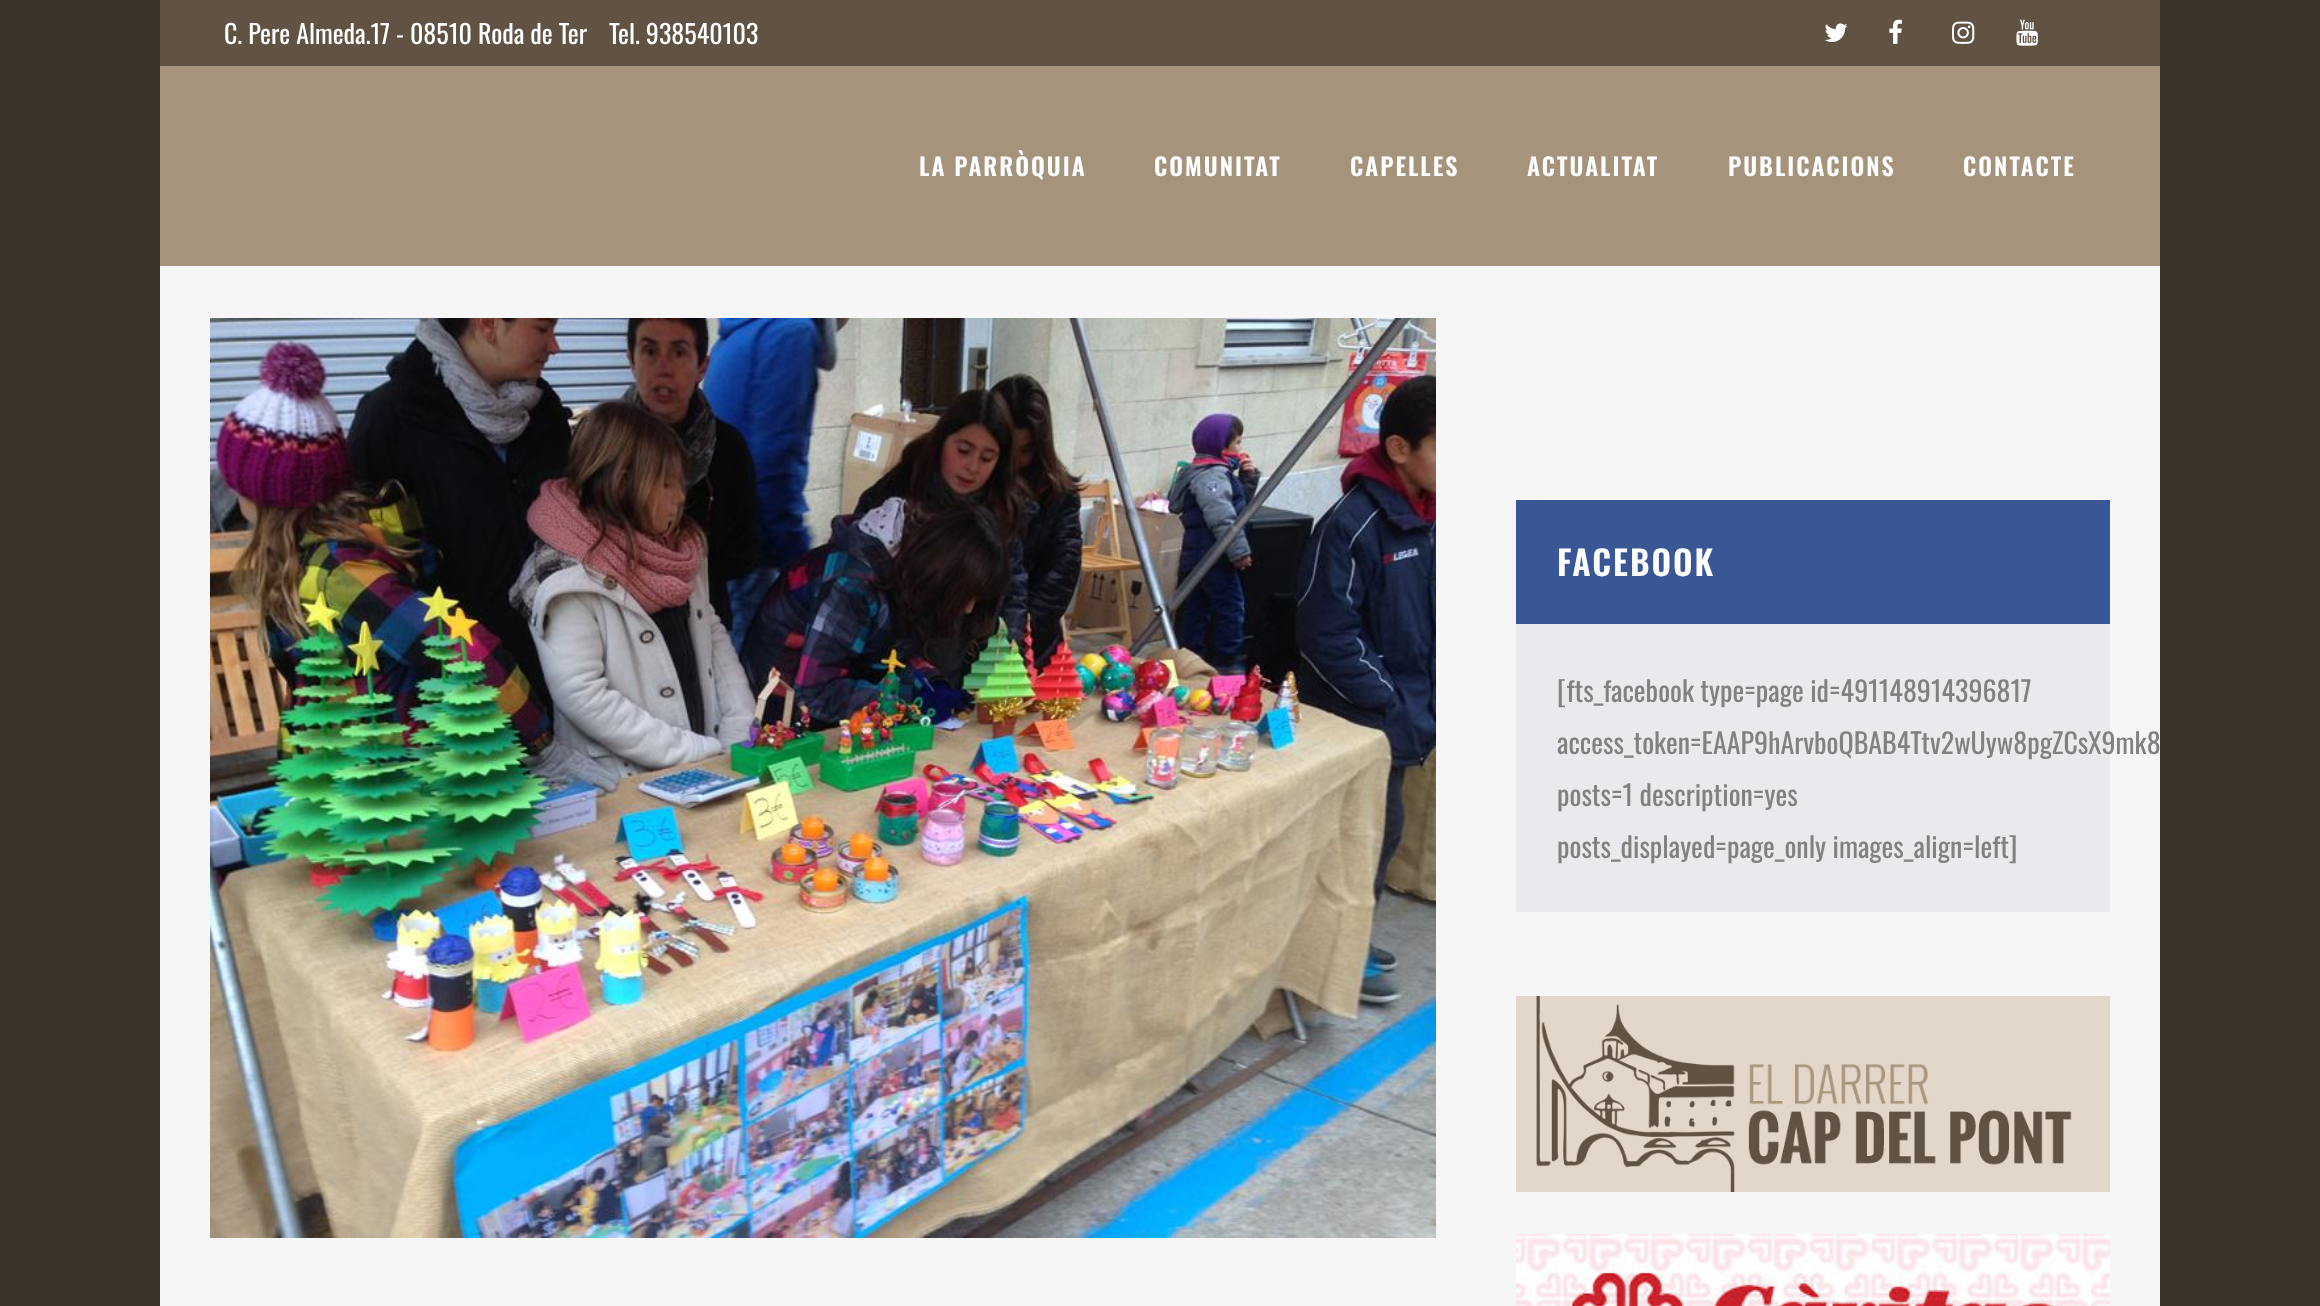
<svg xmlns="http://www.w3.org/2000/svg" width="2320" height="1306">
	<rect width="100%" height="100%" fill="#3C3329" />
	<rect x="160" y="0" width="2000" height="66" fill="#605343" />
	<g font-family="Oswald" font-size="26" fill="#FFFFFF">
		<text x="224" y="44">C. Pere Almeda.17 - 08510 Roda de Ter</text>
		<text x="609" y="44">Tel. 938540103</text>
	</g>
	<image x="1824" y="23" width="24" height="19" href="assets/img1.png" />
	<image x="1889" y="19" width="13" height="25" href="assets/img2.png" />
	<image x="1952" y="21" width="23" height="23" href="assets/img3.png" />
	<image x="2016" y="19" width="22" height="27" href="assets/img4.png" />
	<rect x="160" y="66" width="2000" height="200" fill="#A6937C" />
	<g font-family="Oswald" font-size="24" font-weight="600" letter-spacing="2" fill="#FFFFFF">
		<text x="919" y="176">LA PARRÒQUIA</text>
		<text x="1154" y="176">COMUNITAT</text>
		<text x="1350" y="176">CAPELLES</text>
		<text x="1527" y="176">ACTUALITAT</text>
		<text x="1728" y="176">PUBLICACIONS</text>
		<text x="1963" y="176">CONTACTE</text>
	</g>
	<rect x="160" y="266" width="2000" height="1040" fill="#F6F6F6" />
	<image x="210" y="318" width="1226" height="920" href="assets/img5.png" />
	<rect x="1516" y="500" width="594" height="124" fill="#3A5795" />
	<text x="1557" y="576" font-family="Oswald" font-size="34" font-weight="600" letter-spacing="2" fill="#FFFFFF">FACEBOOK</text>
	<rect x="1516" y="624" width="594" height="288" fill="#E9EAED" />
	<g font-family="Oswald" font-size="28" fill="#818181">
		<text x="1557" y="702">[fts_facebook type=page id=491148914396817</text>
		<text x="1557" y="754">access_token=EAAP9hArvboQBAB4Ttv2wUyw8pgZCsX9mk8</text>
		<text x="1557" y="806">posts=1 description=yes</text>
		<text x="1557" y="858">posts_displayed=page_only images_align=left]</text>
	</g>
	<image x="1516" y="996" width="594" height="196" href="assets/img6.png" />
	<image x="1516" y="1234" width="594" height="72" href="assets/img7.png" />
</svg>
